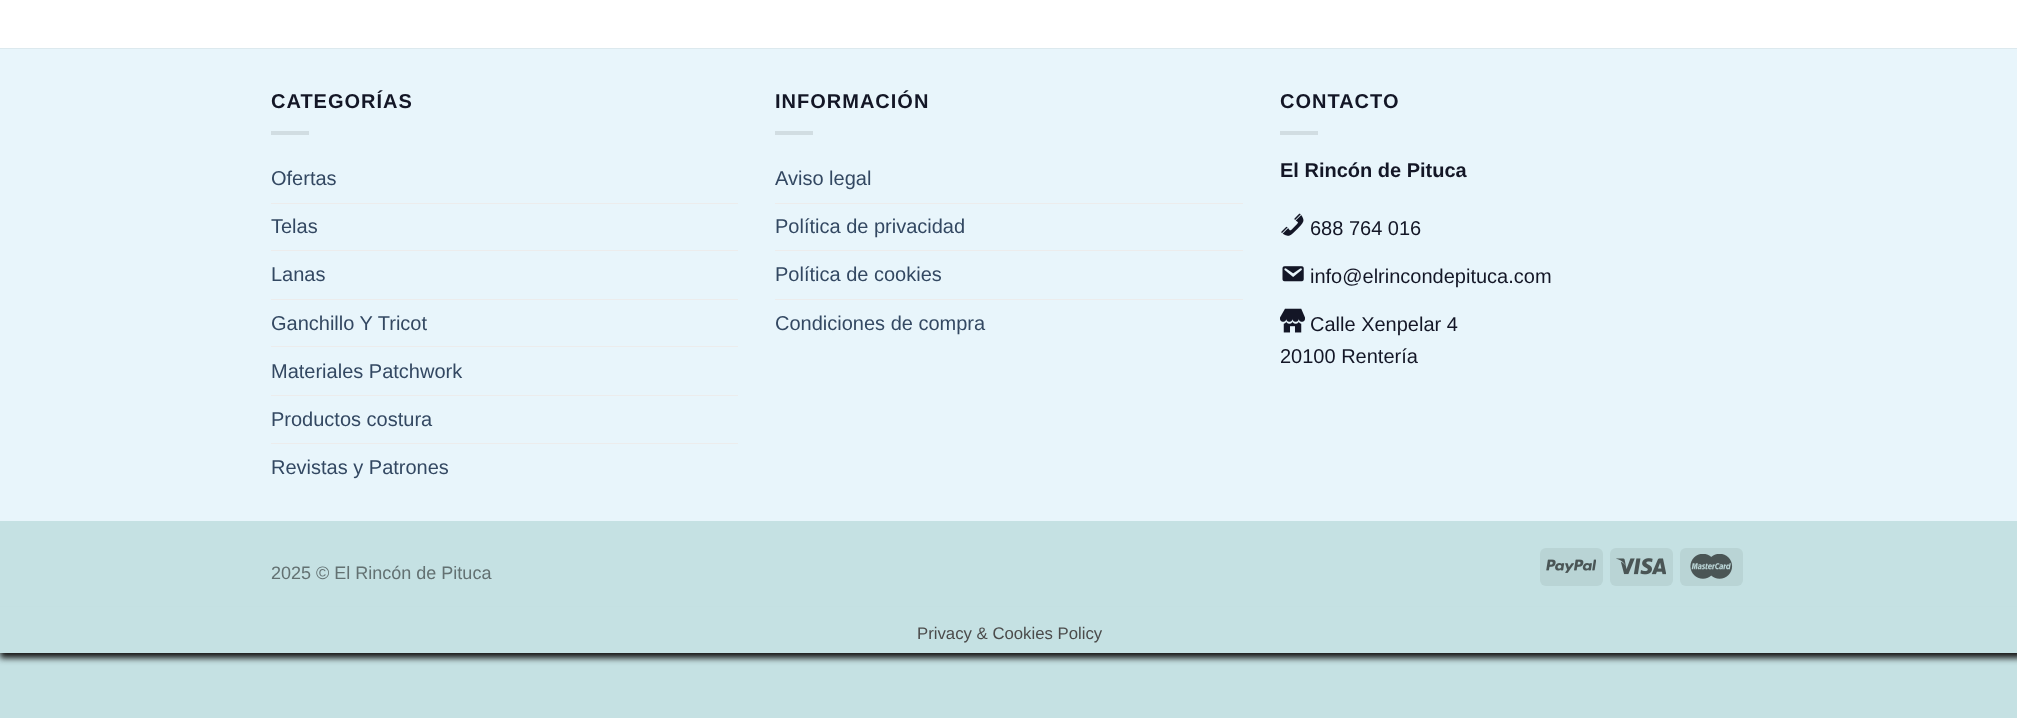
<svg xmlns="http://www.w3.org/2000/svg" width="2017" height="718">
	<defs>
		<clipPath id="clip1"><path d="M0 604H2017V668H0ZM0 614H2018V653H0Z" clip-rule="evenodd" /></clipPath>
	</defs>
	<rect width="100%" height="100%" fill="#C5E1E3" />
	<rect x="0" y="0" width="2017" height="48" fill="#FFFFFF" />
	<rect x="0" y="49" width="2017" height="472" fill="#E8F5FB" />
	<rect x="0" y="48" width="2017" height="1" fill="#DCE9EE" />
	<text x="271" y="108" font-family="Liberation Sans" font-size="20" font-weight="700" letter-spacing="1" fill="#131626">CATEGORÍAS</text>
	<rect x="271" y="131" width="38" height="4" fill="#D1DDE2" />
	<text x="271" y="185" font-family="Liberation Sans" font-size="20" fill="#334862">Ofertas</text>
	<rect x="271" y="203" width="467" height="1" fill="#ECECEC" />
	<text x="271" y="233" font-family="Liberation Sans" font-size="20" fill="#334862">Telas</text>
	<rect x="271" y="250" width="467" height="1" fill="#ECECEC" />
	<text x="271" y="281" font-family="Liberation Sans" font-size="20" fill="#334862">Lanas</text>
	<rect x="271" y="299" width="467" height="1" fill="#ECECEC" />
	<text x="271" y="330" font-family="Liberation Sans" font-size="20" fill="#334862">Ganchillo Y Tricot</text>
	<rect x="271" y="346" width="467" height="1" fill="#ECECEC" />
	<text x="271" y="378" font-family="Liberation Sans" font-size="20" fill="#334862">Materiales Patchwork</text>
	<rect x="271" y="395" width="467" height="1" fill="#ECECEC" />
	<text x="271" y="426" font-family="Liberation Sans" font-size="20" fill="#334862">Productos costura</text>
	<rect x="271" y="443" width="467" height="1" fill="#ECECEC" />
	<text x="271" y="474" font-family="Liberation Sans" font-size="20" fill="#334862">Revistas y Patrones</text>
	<text x="775" y="108" font-family="Liberation Sans" font-size="20" font-weight="700" letter-spacing="1" fill="#131626">INFORMACIÓN</text>
	<rect x="775" y="131" width="38" height="4" fill="#D1DDE2" />
	<text x="775" y="185" font-family="Liberation Sans" font-size="20" fill="#334862">Aviso legal</text>
	<rect x="775" y="203" width="468" height="1" fill="#ECECEC" />
	<text x="775" y="233" font-family="Liberation Sans" font-size="20" fill="#334862">Política de privacidad</text>
	<rect x="775" y="250" width="468" height="1" fill="#ECECEC" />
	<text x="775" y="281" font-family="Liberation Sans" font-size="20" fill="#334862">Política de cookies</text>
	<rect x="775" y="299" width="468" height="1" fill="#ECECEC" />
	<text x="775" y="330" font-family="Liberation Sans" font-size="20" fill="#334862">Condiciones de compra</text>
	<text x="1280" y="108" font-family="Liberation Sans" font-size="20" font-weight="700" letter-spacing="1" fill="#131626">CONTACTO</text>
	<rect x="1280" y="131" width="38" height="4" fill="#D1DDE2" />
	<text x="1280" y="177" font-family="Liberation Sans" font-size="20" font-weight="700" fill="#131626">El Rincón de Pituca</text>
	<image x="1281" y="213" width="23" height="23" href="assets/img1.png" />
	<text x="1310" y="235" font-family="Liberation Sans" font-size="20" fill="#131626">688 764 016</text>
	<image x="1282" y="266" width="22" height="16" href="assets/img2.png" />
	<text x="1310" y="283" font-family="Liberation Sans" font-size="20" fill="#131626">info@elrincondepituca.com</text>
	<image x="1280" y="308" width="25" height="25" href="assets/img3.png" />
	<g font-family="Liberation Sans" font-size="20" fill="#131626">
		<text x="1310" y="331">Calle Xenpelar 4</text>
		<text x="1280" y="363">20100 Rentería</text>
	</g>
	<g clip-path="url(#clip1)">
		<rect x="0" y="614" width="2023" height="44" fill="#161616" filter="blur(3px)" />
	</g>
	<rect x="0" y="607" width="2017" height="7" fill="#C5E1E3" />
	<text x="271" y="579" font-family="Liberation Sans" font-size="18" fill="#637172">2025 © El Rincón de Pituca</text>
	<rect x="1540" y="548" width="63" height="38" rx="6" fill="#B9D4D5" />
	<image x="1546" y="559" width="50" height="14" href="assets/img4.png" />
	<rect x="1610" y="548" width="63" height="38" rx="6" fill="#B9D4D5" />
	<image x="1616" y="558" width="50" height="17" href="assets/img5.png" />
	<rect x="1680" y="548" width="63" height="38" rx="6" fill="#B9D4D5" />
	<image x="1690" y="554" width="43" height="25" href="assets/img6.png" />
	<text x="917" y="639" font-family="Liberation Sans" font-size="16.75" fill="#4B4B4B">Privacy &amp; Cookies Policy</text>
</svg>
